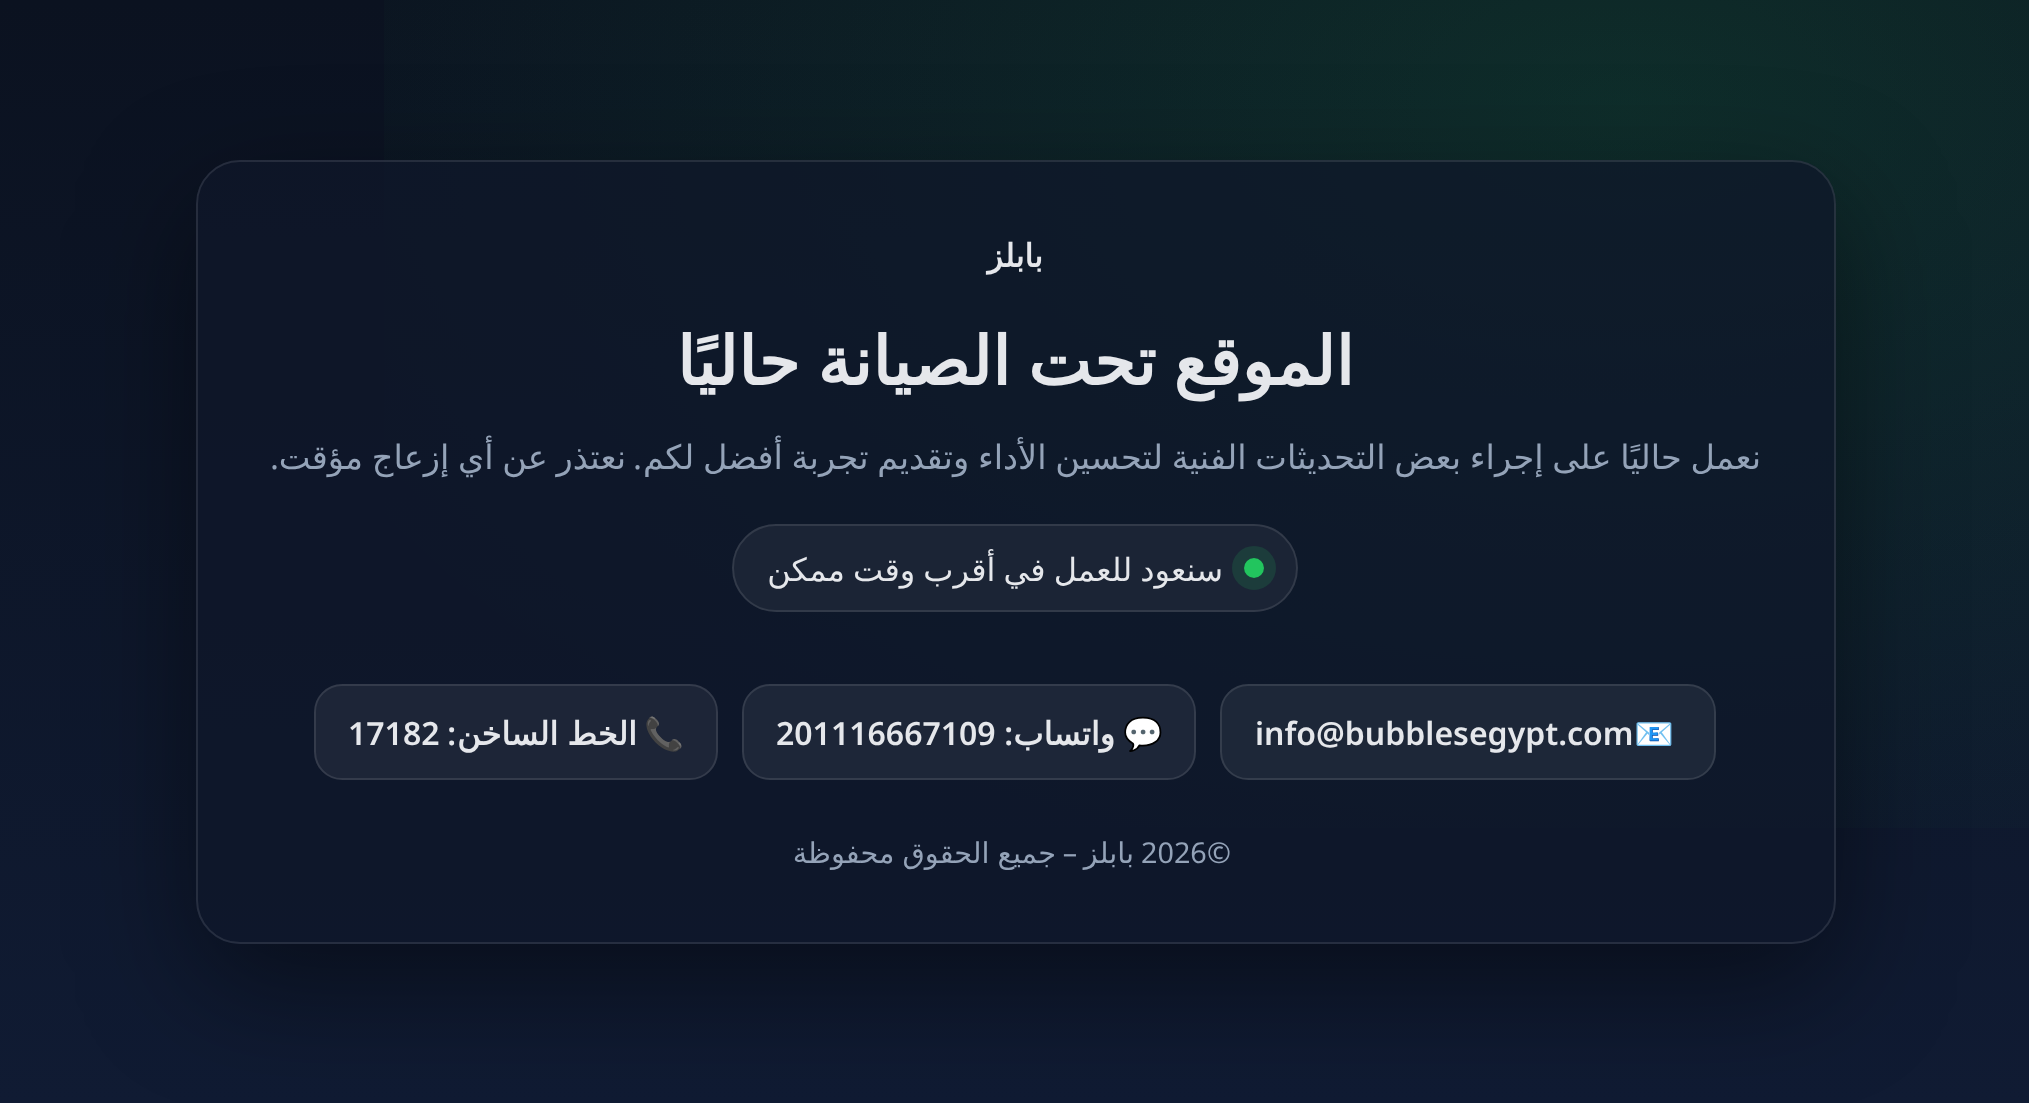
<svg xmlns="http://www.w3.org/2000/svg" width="2029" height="1103">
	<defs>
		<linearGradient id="g1" gradientUnits="userSpaceOnUse" x1="1015" y1="0" x2="1015" y2="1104"><stop offset="0" stop-color="#0B1220" /><stop offset="1" stop-color="#101B33" /></linearGradient>
		<radialGradient id="g2" gradientUnits="userSpaceOnUse" cx="0" cy="0" r="1" gradientTransform="matrix(2400 0 0 1400 1624 110)"><stop offset="0" stop-color="#22C55E" stop-opacity="0.15" /><stop offset="0.6" stop-color="#22C55E" stop-opacity="0" /></radialGradient>
		<clipPath id="clip1"><path d="M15 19H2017V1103H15ZM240 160H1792C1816.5 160 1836 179.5 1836 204V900C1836 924.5 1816.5 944 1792 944H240C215.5 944 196 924.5 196 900V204C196 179.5 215.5 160 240 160Z" clip-rule="evenodd" /></clipPath>
	</defs>
	<rect width="100%" height="100%" fill="#FFFFFF" />
	<rect x="0" y="0" width="2029" height="1103" fill="url(#g1)" />
	<rect x="384" y="0" width="1645" height="828" fill="url(#g2)" />
	<g clip-path="url(#clip1)">
		<rect x="196" y="200" width="1640" height="784" rx="44" fill="#000000" fill-opacity="0.45" filter="blur(60px)" />
	</g>
	<rect x="196" y="160" width="1640" height="784" rx="44" fill="#0F172A" fill-opacity="0.75" />
	<rect x="197" y="161" width="1638" height="782" rx="43" fill="none" stroke="#FFFFFF" stroke-opacity="0.1" stroke-width="2" />
	<text x="1043" y="267" font-family="DejaVu Sans" font-size="32" font-weight="700" direction="rtl" fill="#E5E7EB">بابلز</text>
	<text x="1354" y="385" word-spacing="-4" font-family="DejaVu Sans" font-size="67.25" font-weight="700" direction="rtl" fill="#E5E7EB">الموقع تحت الصيانة حاليًا</text>
	<text x="1761" y="469" word-spacing="-1.9" font-family="DejaVu Sans" font-size="33.6" direction="rtl" fill="#94A3B8">نعمل حاليًا على إجراء بعض التحديثات الفنية لتحسين الأداء وتقديم تجربة أفضل لكم</text>
	<text x="642" y="469" font-family="Noto Sans" font-size="33.6" direction="rtl" fill="#94A3B8">.</text>
	<text x="626" y="469" word-spacing="-2" font-family="DejaVu Sans" font-size="33.6" direction="rtl" fill="#94A3B8">نعتذر عن أي إزعاج مؤقت</text>
	<text x="279" y="469" font-family="Noto Sans" font-size="33.6" direction="rtl" fill="#94A3B8">.</text>
	<rect x="732" y="524" width="566" height="88" rx="44" fill="#1B2435" />
	<rect x="733" y="525" width="564" height="86" rx="43" fill="none" stroke="#FFFFFF" stroke-opacity="0.1" stroke-width="2" />
	<circle cx="1254" cy="568" r="16" fill="none" stroke="#1C3C3B" stroke-width="12" />
	<circle cx="1254" cy="568" r="10" fill="#22C55E" />
	<text x="1223" y="581" word-spacing="-2" font-family="DejaVu Sans" font-size="32" direction="rtl" fill="#E5E7EB">سنعود للعمل في أقرب وقت ممكن</text>
	<rect x="1220" y="684" width="496" height="96" rx="28" fill="#1D2738" />
	<rect x="1221" y="685" width="494" height="94" rx="27" fill="none" stroke="#FFFFFF" stroke-opacity="0.1" stroke-width="2" />
	<text x="1634" y="745" font-family="Noto Color Emoji" font-size="32" font-weight="700" fill="#E5E7EB">📧</text>
	<text x="1255" y="745" font-family="Noto Sans" font-size="32" font-weight="600" fill="#E5E7EB">info@bubblesegypt.com</text>
	<rect x="742" y="684" width="454" height="96" rx="28" fill="#1D2638" />
	<rect x="743" y="685" width="452" height="94" rx="27" fill="none" stroke="#FFFFFF" stroke-opacity="0.1" stroke-width="2" />
	<text x="1163" y="745" font-family="Noto Color Emoji" font-size="32" font-weight="700" direction="rtl" fill="#E5E7EB">💬</text>
	<text x="1115" y="745" font-family="DejaVu Sans" font-size="32" font-weight="700" direction="rtl" fill="#E5E7EB">واتساب</text>
	<text x="1013" y="745" font-family="Noto Sans" font-size="32" font-weight="600" direction="rtl" fill="#E5E7EB">:</text>
	<text x="776" y="745" font-family="Noto Sans" font-size="32" font-weight="600" fill="#E5E7EB">201116667109</text>
	<rect x="314" y="684" width="404" height="96" rx="28" fill="#1D2537" />
	<rect x="315" y="685" width="402" height="94" rx="27" fill="none" stroke="#FFFFFF" stroke-opacity="0.1" stroke-width="2" />
	<text x="684" y="745" font-family="Noto Color Emoji" font-size="32" font-weight="700" direction="rtl" fill="#E5E7EB">📞</text>
	<text x="637" y="745" word-spacing="-1" font-family="DejaVu Sans" font-size="32" font-weight="700" direction="rtl" fill="#E5E7EB">الخط الساخن</text>
	<text x="456" y="745" font-family="Noto Sans" font-size="32" font-weight="600" direction="rtl" fill="#E5E7EB">:</text>
	<text x="348" y="745" font-family="Noto Sans" font-size="32" font-weight="600" fill="#E5E7EB">17182</text>
	<g font-family="Noto Sans" font-size="28.75" fill="#94A3B8">
		<text x="1207" y="863">©</text>
		<text x="1141" y="863">2026</text>
	</g>
	<text x="1134" y="863" font-family="DejaVu Sans" font-size="28.75" direction="rtl" fill="#94A3B8">بابلز</text>
	<text x="1077" y="863" font-family="Noto Sans" font-size="28.75" direction="rtl" fill="#94A3B8">–</text>
	<text x="1056" y="863" word-spacing="-1" font-family="DejaVu Sans" font-size="28.75" direction="rtl" fill="#94A3B8">جميع الحقوق محفوظة</text>
</svg>
